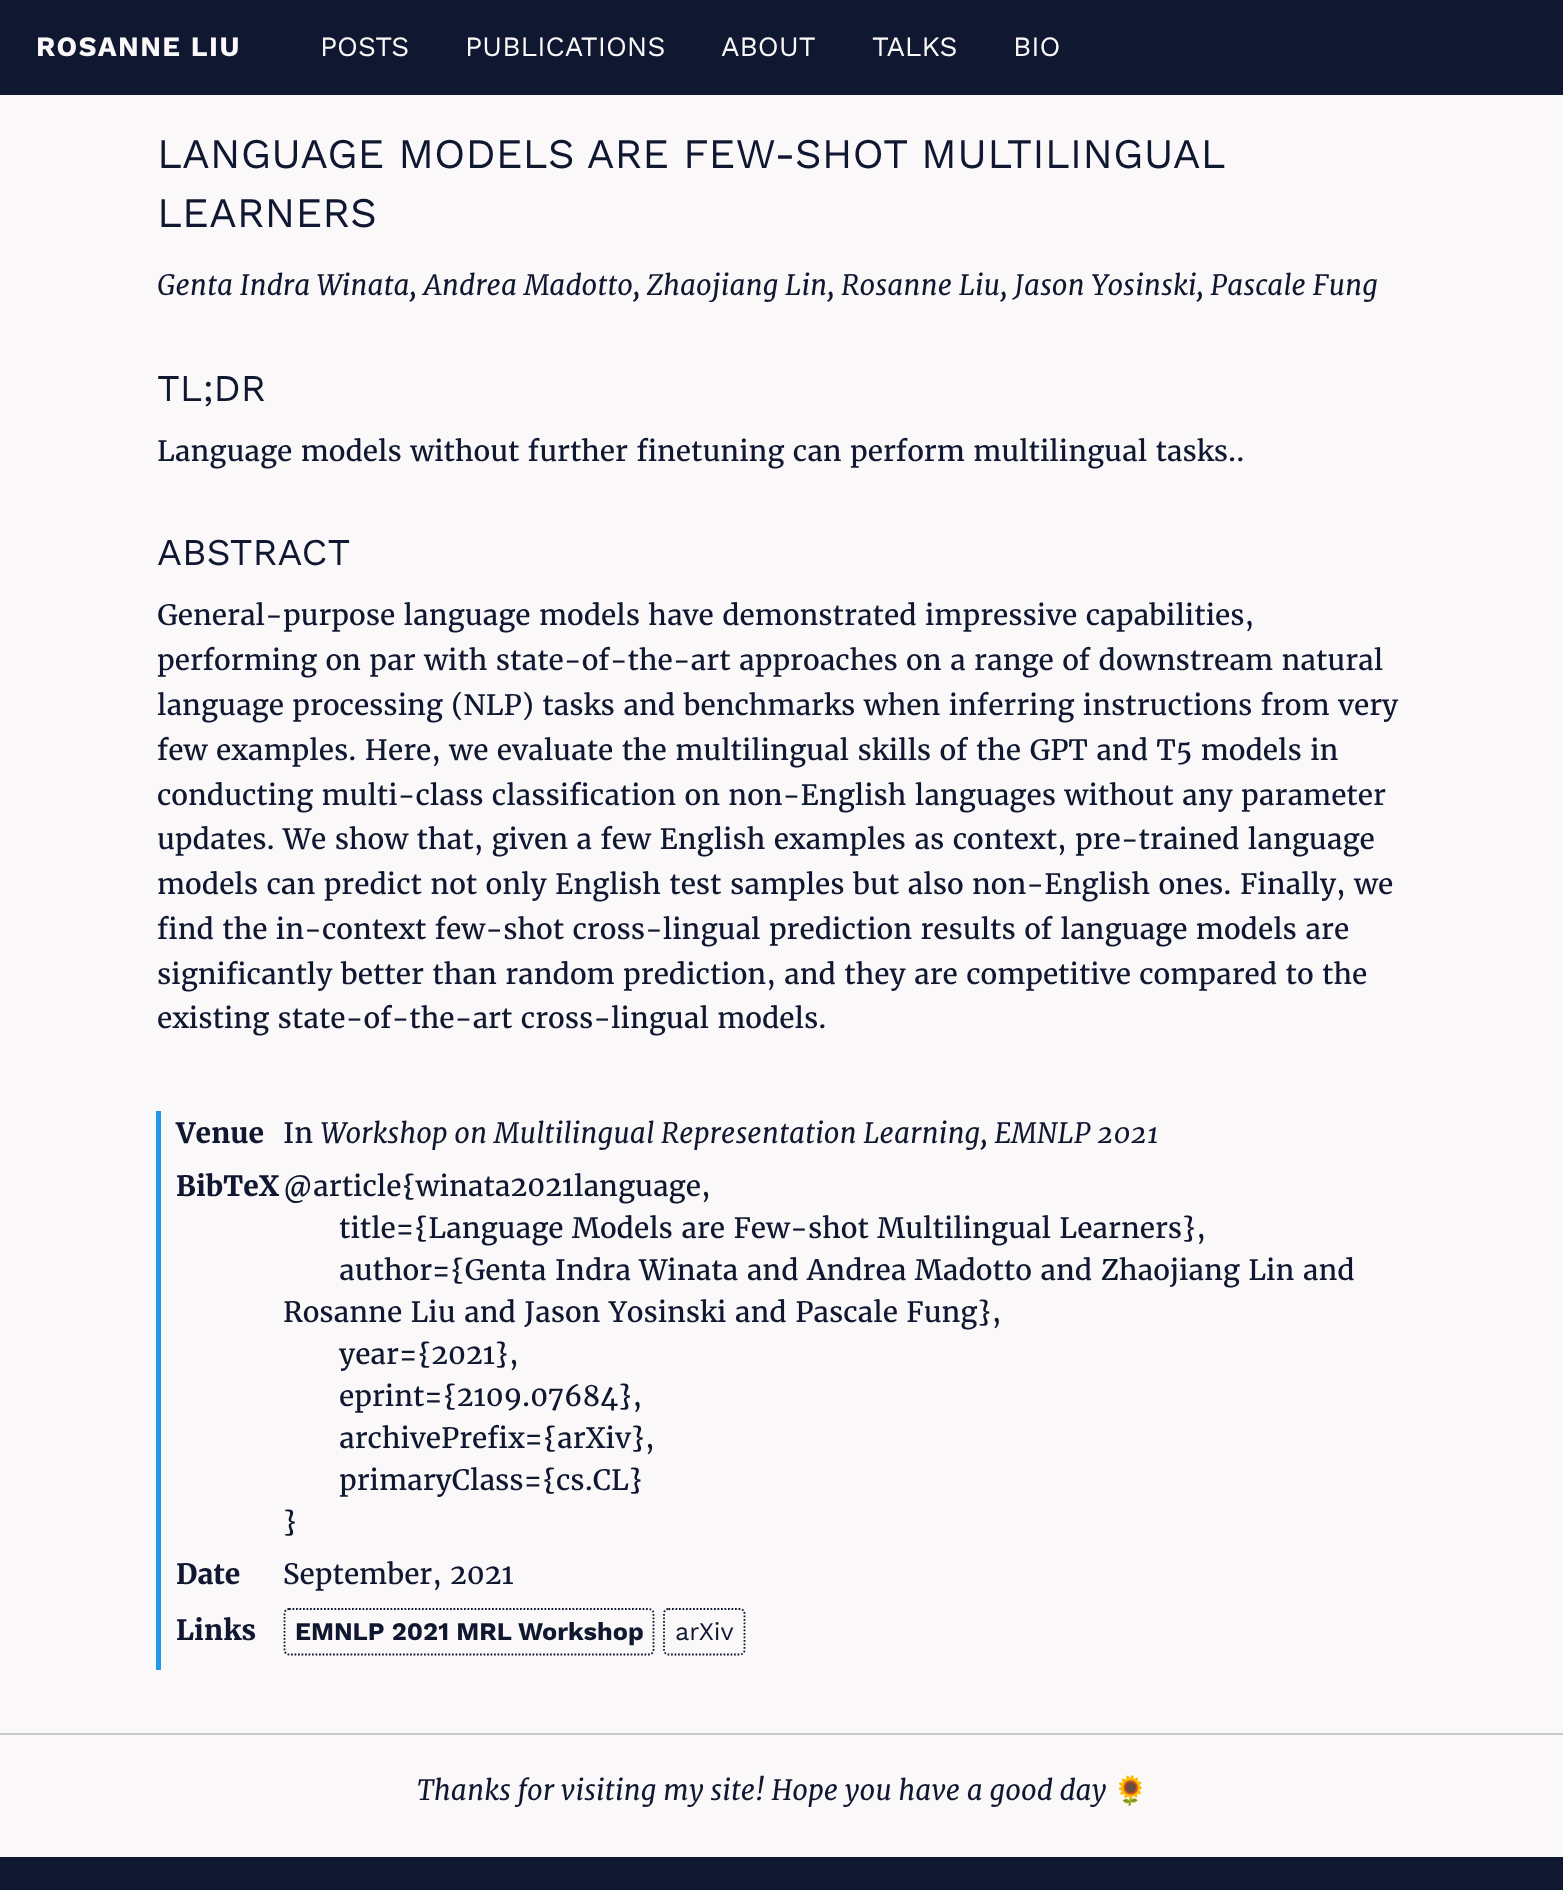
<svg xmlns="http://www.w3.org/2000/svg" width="1563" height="1890">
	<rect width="100%" height="100%" fill="#FAF8F8" />
	<rect x="0" y="0" width="1563" height="95" fill="#101730" />
	<text x="36" y="56" font-family="Work Sans" font-size="28" font-weight="700" letter-spacing="1.4" fill="#FAF8F8">ROSANNE LIU</text>
	<g font-family="Work Sans" font-size="28" fill="#FAF8F8">
		<text x="320" y="56">POSTS</text>
		<text x="465" y="56">PUBLICATIONS</text>
		<text x="721" y="56">ABOUT</text>
		<text x="872" y="56">TALKS</text>
		<text x="1013" y="56">BIO</text>
	</g>
	<g font-family="Work Sans" font-size="42" fill="#101730">
		<text x="157" y="168" word-spacing="-0.5">LANGUAGE MODELS ARE FEW-SHOT MULTILINGUAL</text>
		<text x="157" y="227">LEARNERS</text>
	</g>
	<text x="157" y="295" font-family="Merriweather" font-size="28" font-style="italic" fill="#101730">Genta Indra Winata, Andrea Madotto, Zhaojiang Lin, Rosanne Liu, Jason Yosinski, Pascale Fung</text>
	<text x="157" y="401" font-family="Work Sans" font-size="37.75" fill="#101730">TL;DR</text>
	<text x="157" y="461" font-family="Merriweather" font-size="28" fill="#101730">Language models without further finetuning can perform multilingual tasks..</text>
	<text x="157" y="565" font-family="Work Sans" font-size="37.75" fill="#101730">ABSTRACT</text>
	<g font-family="Merriweather" font-size="28" fill="#101730">
		<text x="157" y="625">General-purpose language models have demonstrated impressive capabilities,</text>
		<text x="157" y="670">performing on par with state-of-the-art approaches on a range of downstream natural</text>
		<text x="157" y="715">language processing (NLP) tasks and benchmarks when inferring instructions from very</text>
		<text x="157" y="760">few examples. Here, we evaluate the multilingual skills of the GPT and T5 models in</text>
		<text x="157" y="805">conducting multi-class classification on non-English languages without any parameter</text>
		<text x="157" y="849">updates. We show that, given a few English examples as context, pre-trained language</text>
		<text x="157" y="894">models can predict not only English test samples but also non-English ones. Finally, we</text>
		<text x="157" y="939">find the in-context few-shot cross-lingual prediction results of language models are</text>
		<text x="157" y="984">significantly better than random prediction, and they are competitive compared to the</text>
		<text x="157" y="1028">existing state-of-the-art cross-lingual models.</text>
	</g>
	<rect x="156" y="1111" width="5" height="559" fill="#2199E8" />
	<text x="176" y="1143" font-family="Merriweather" font-size="28" font-weight="700" fill="#101730">Venue</text>
	<text x="283" y="1143" font-family="Merriweather" font-size="28" fill="#101730">In</text>
	<text x="321" y="1143" font-family="Merriweather" font-size="28" font-style="italic" fill="#101730">Workshop on Multilingual Representation Learning, EMNLP 2021</text>
	<text x="176" y="1196" font-family="Merriweather" font-size="28" font-weight="700" fill="#101730">BibTeX</text>
	<g font-family="Merriweather" font-size="28" fill="#101730">
		<text x="283" y="1196">@article{winata2021language,</text>
		<text x="339" y="1238">title={Language Models are Few-shot Multilingual Learners},</text>
		<text x="339" y="1280">author={Genta Indra Winata and Andrea Madotto and Zhaojiang Lin and</text>
		<text x="283" y="1322">Rosanne Liu and Jason Yosinski and Pascale Fung},</text>
		<text x="339" y="1364">year={2021},</text>
		<text x="339" y="1406">eprint={2109.07684},</text>
		<text x="339" y="1448">archivePrefix={arXiv},</text>
		<text x="339" y="1490">primaryClass={cs.CL}</text>
		<text x="283" y="1532">}</text>
	</g>
	<text x="176" y="1584" font-family="Merriweather" font-size="28" font-weight="700" fill="#101730">Date</text>
	<text x="283" y="1584" font-family="Merriweather" font-size="28" fill="#101730">September, 2021</text>
	<text x="176" y="1640" font-family="Merriweather" font-size="28" font-weight="700" fill="#101730">Links</text>
	<path d="M289 1609H649C651.5 1609 653.5 1611 653.5 1613.5V1650C653.5 1652.5 651.5 1654.5 649 1654.5H289C286.5 1654.5 284.5 1652.5 284.5 1650V1613.5C284.5 1611 286.5 1609 289 1609Z" fill="none" stroke="#101730" stroke-width="1.8" stroke-dasharray="1.75 1.75" />
	<text x="295" y="1640" font-family="Work Sans" font-size="25.25" font-weight="700" fill="#101730">EMNLP 2021 MRL Workshop</text>
	<path d="M668.5 1609H740C742.5 1609 744.5 1611 744.5 1613.5V1650C744.5 1652.5 742.5 1654.5 740 1654.5H668.5C666 1654.5 664 1652.5 664 1650V1613.5C664 1611 666 1609 668.5 1609Z" fill="none" stroke="#101730" stroke-width="1.8" stroke-dasharray="1.75 1.75" />
	<text x="675" y="1640" font-family="Work Sans" font-size="25.25" fill="#101730">arXiv</text>
	<rect x="0" y="1733" width="1563" height="2" fill="#CACACA" />
	<text x="417" y="1800" font-family="Merriweather" font-size="28" font-style="italic" fill="#101730">Thanks for visiting my site! Hope you have a good day</text>
	<text x="1113" y="1800" font-family="Noto Color Emoji" font-size="28" fill="#101730">🌻</text>
	<rect x="0" y="1857" width="1563" height="33" fill="#101730" />
</svg>
